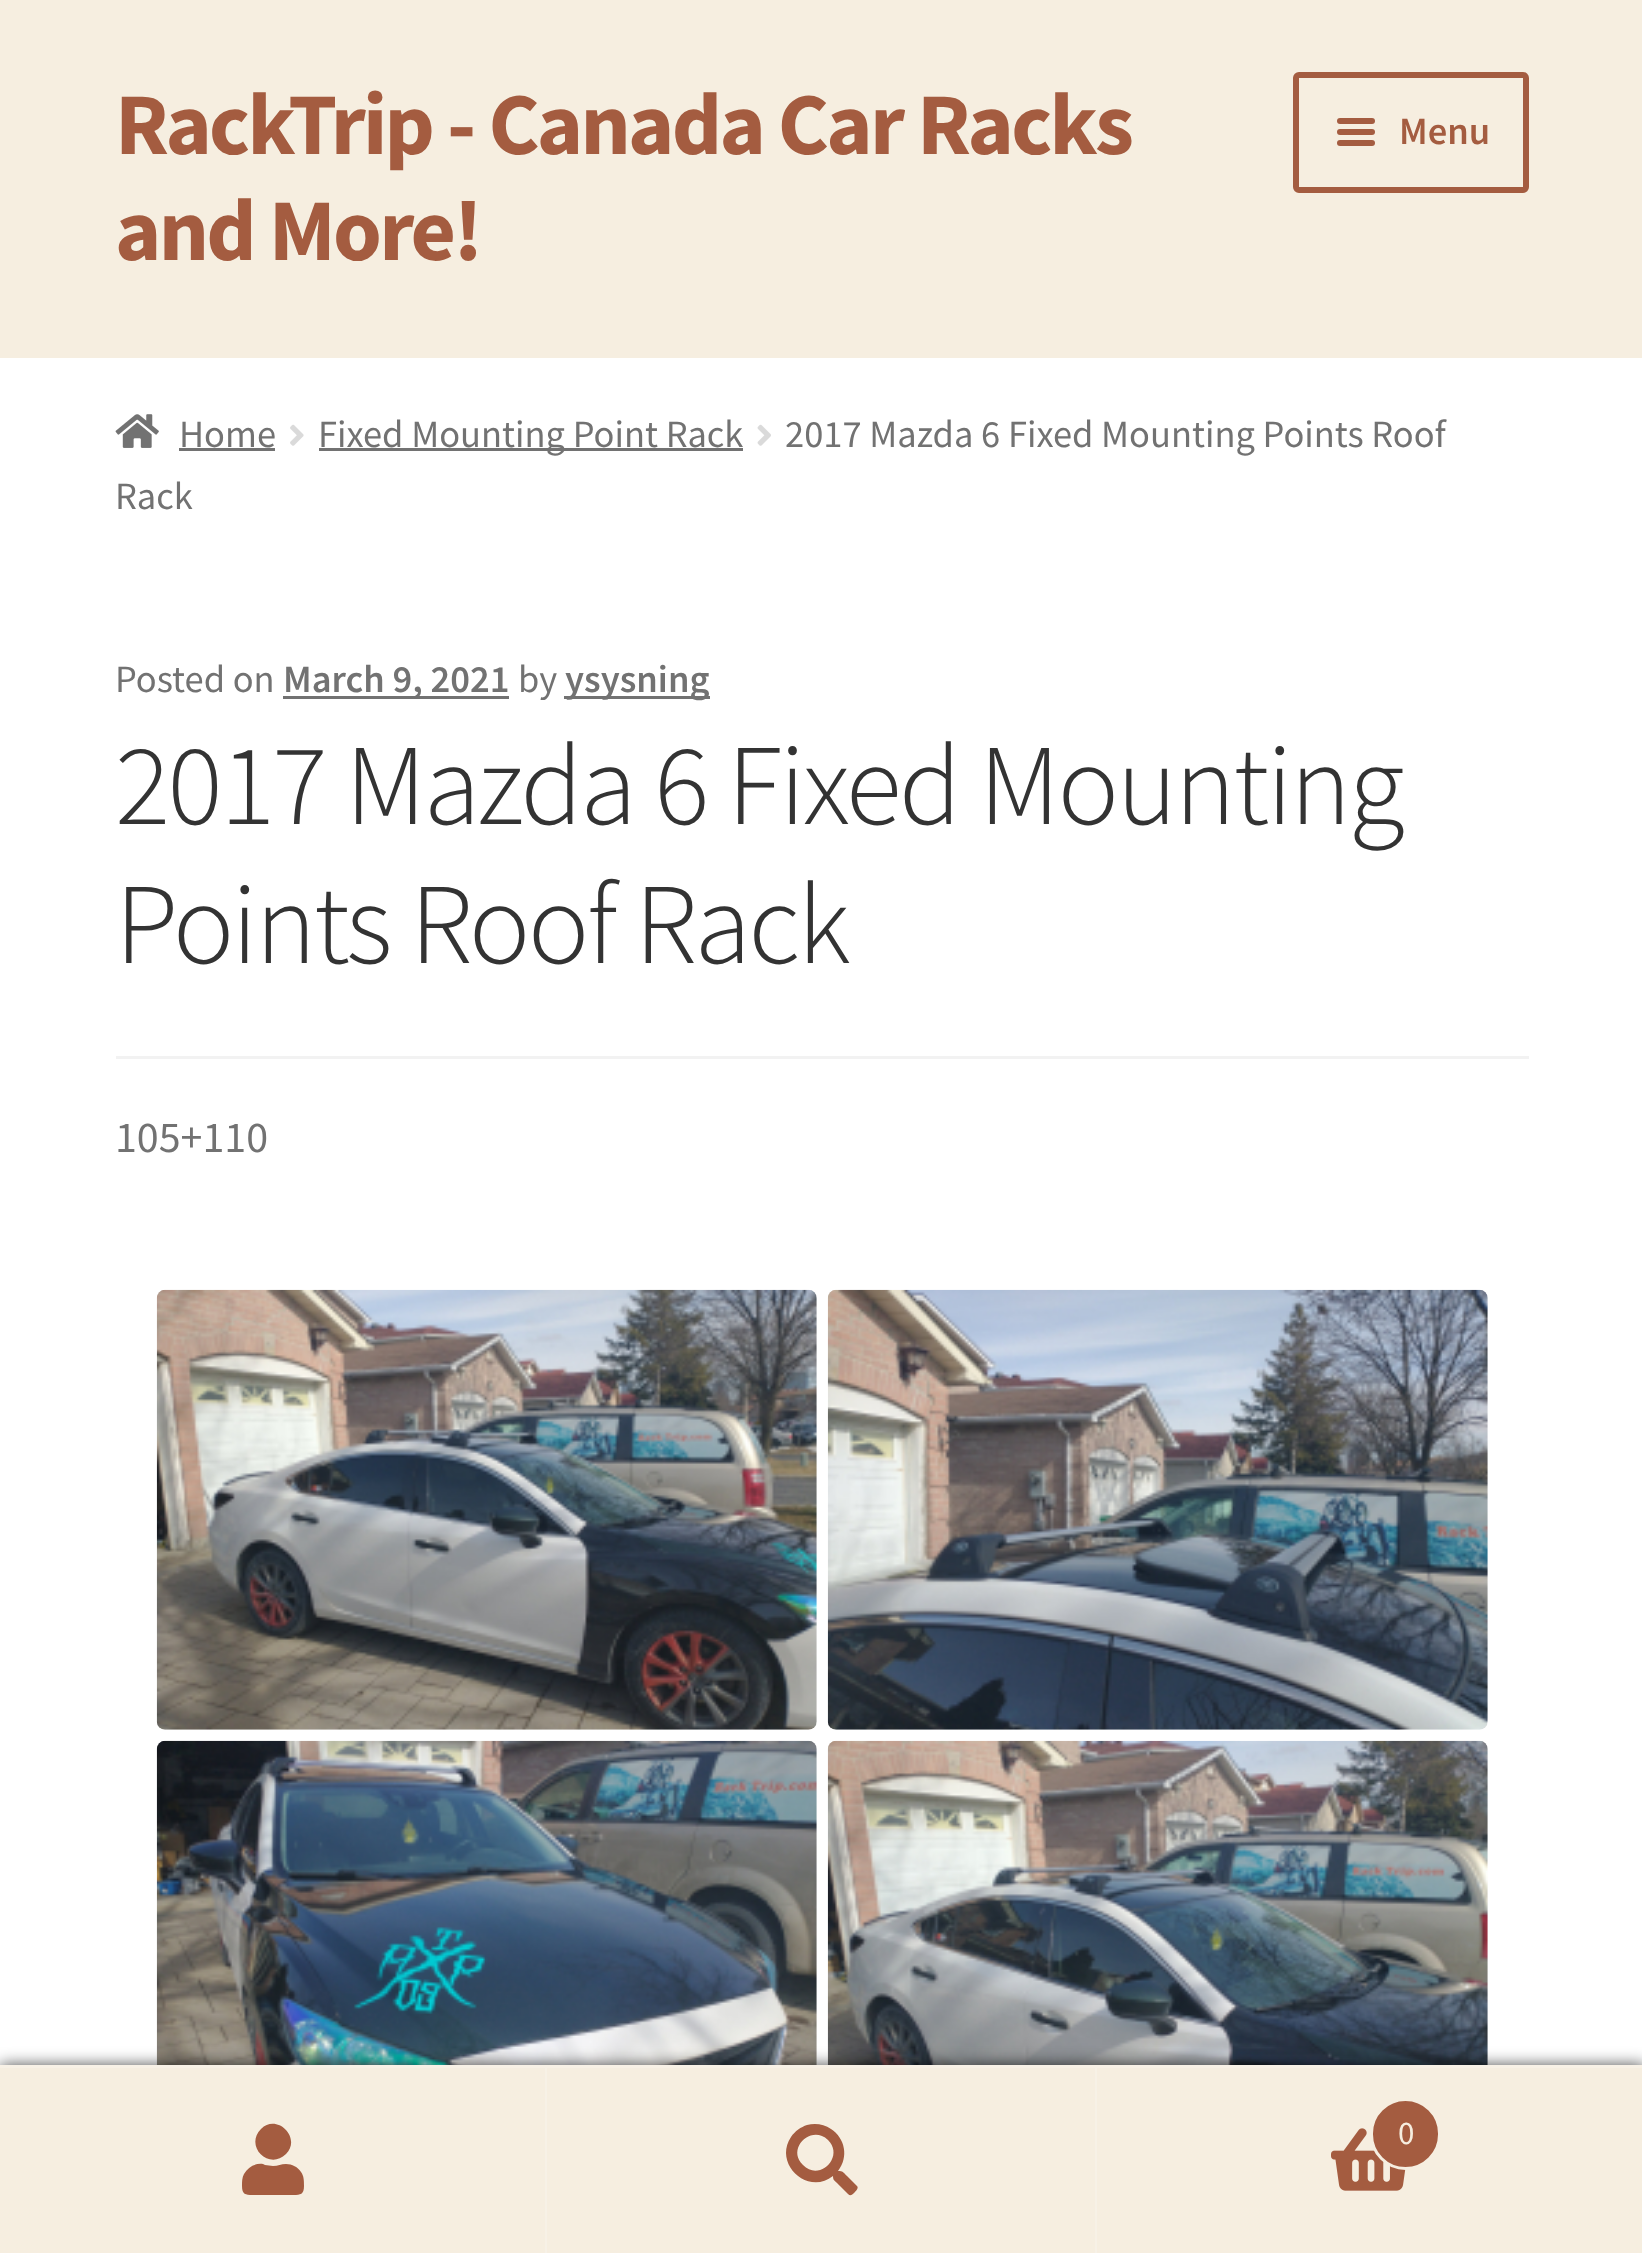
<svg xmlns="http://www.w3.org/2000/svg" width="1642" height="2253">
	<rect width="100%" height="100%" fill="#FFFFFF" />
	<rect x="0" y="0" width="1642" height="358" fill="#F6EEE0" />
	<g font-family="Source Sans Pro" font-size="88" font-weight="700" letter-spacing="-2.75" fill="#A45C40">
		<text x="115" y="154">RackTrip - Canada Car Racks</text>
		<text x="115" y="260">and More!</text>
	</g>
	<rect x="1296" y="75" width="230" height="115" rx="3" fill="none" stroke="#A45C40" stroke-width="6" />
	<rect x="1337" y="118" width="38" height="6" rx="3" fill="#A45C40" />
	<rect x="1337" y="129" width="38" height="6" rx="3" fill="#A45C40" />
	<text x="1399" y="144" font-family="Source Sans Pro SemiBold" font-size="38.5" font-weight="600" fill="#A45C40">Menu</text>
	<rect x="1337" y="140" width="38" height="6" rx="3" fill="#A45C40" />
	<image x="115" y="414" width="44" height="34" href="assets/img1.png" />
	<text x="179" y="447" font-family="Source Sans Pro" font-size="38.5" fill="#727272">Home</text>
	<rect x="179" y="448" width="96" height="3" fill="#727272" />
	<image x="290" y="424" width="14" height="22" href="assets/img2.png" />
	<rect x="319" y="448" width="424" height="3" fill="#727272" />
	<text x="318" y="447" font-family="Source Sans Pro" font-size="38.5" fill="#727272">Fixed Mounting Point Rack</text>
	<image x="757" y="424" width="14" height="22" href="assets/img3.png" />
	<g font-family="Source Sans Pro" font-size="38.5" fill="#727272">
		<text x="785" y="447">2017 Mazda 6 Fixed Mounting Points Roof</text>
		<text x="115" y="509">Rack</text>
	</g>
	<rect x="116" y="1056" width="1413" height="3" fill="#F2F2F2" />
	<text x="115" y="692" font-family="Source Sans Pro" font-size="38.5" fill="#727272">Posted on</text>
	<rect x="283" y="696" width="226" height="3" fill="#727272" />
	<text x="283" y="692" font-family="Source Sans Pro SemiBold" font-size="38.5" font-weight="600" fill="#727272">March 9, 2021</text>
	<text x="518" y="692" font-family="Source Sans Pro" font-size="38.5" fill="#727272">by</text>
	<rect x="564" y="696" width="146" height="3" fill="#727272" />
	<text x="565" y="692" font-family="Source Sans Pro SemiBold" font-size="38.5" font-weight="600" fill="#727272">ysysning</text>
	<g font-family="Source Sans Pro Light" font-size="115.25" font-weight="300" letter-spacing="-2.75" fill="#333333">
		<text x="115" y="824">2017 Mazda 6 Fixed Mounting</text>
		<text x="115" y="963">Points Roof Rack</text>
	</g>
	<text x="115" y="1152" font-family="Source Sans Pro" font-size="44" fill="#727272">105+110</text>
	<image x="156" y="1289" width="661" height="441" href="assets/img4.png" />
	<image x="827" y="1289" width="661" height="441" href="assets/img5.png" />
	<image x="156" y="1740" width="661" height="325" href="assets/img6.png" />
	<image x="827" y="1740" width="661" height="325" href="assets/img7.png" />
	<rect x="0" y="2065" width="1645" height="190" fill="#000000" fill-opacity="0.7" filter="blur(8px)" />
	<rect x="0" y="2065" width="1642" height="3" fill="#F8F1E6" />
	<rect x="0" y="2068" width="1642" height="185" fill="#F6EEE0" />
	<rect x="545" y="2068" width="2" height="185" fill="#FFFFFF" fill-opacity="0.2" />
	<path d="M286 2154C269 2171 244 2146 261 2129C277 2113 302 2138 286 2154ZM286 2164C292 2164 298 2167 301 2172C304 2176 304 2181 304 2186C304 2196 299 2195 289 2195H257C247 2195 242 2196 242 2186C242 2181 242 2178 244 2174C248 2167 255 2163 263 2164L265 2165L273 2166C278 2166 281 2164 286 2164Z" fill="#A45C40" />
	<rect x="1095" y="2068" width="2" height="185" fill="#FFFFFF" fill-opacity="0.2" />
	<path d="M857 2186C859 2188 856 2191 854 2193C850 2197 849 2195 846 2192L837 2183C834 2180 833 2180 833 2176C808 2196 773 2164 791 2137C795 2131 801 2127 807 2125C815 2123 824 2124 831 2129C845 2138 849 2157 838 2171C843 2171 843 2172 847 2176ZM803 2165C819 2182 845 2157 828 2140C811 2124 786 2149 803 2165Z" fill="#A45C40" />
	<image x="1331" y="2128" width="75" height="63" href="assets/img8.png" />
	<rect x="1371.5" y="2099.5" width="68" height="69" rx="34" fill="#A45C40" stroke="#F6EEE0" stroke-width="3" />
	<text x="1398" y="2144" font-family="Source Sans Pro" font-size="33" fill="#F6EEE0">0</text>
</svg>
